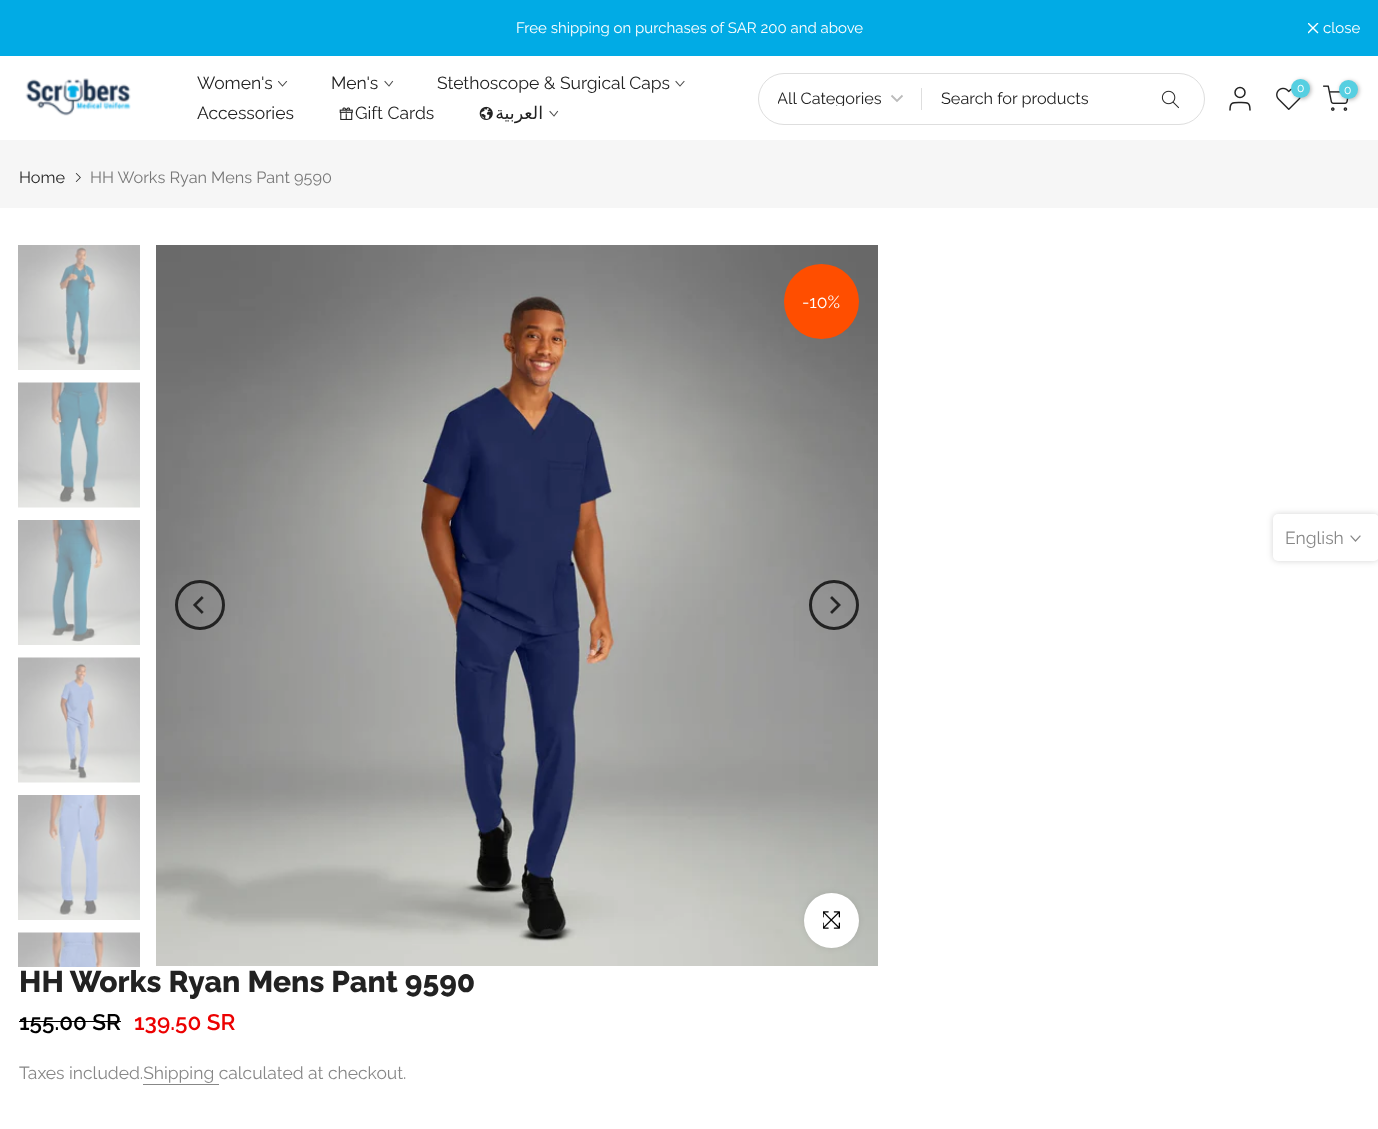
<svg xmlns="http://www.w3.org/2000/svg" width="1378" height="1129">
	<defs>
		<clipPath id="clip1"><rect x="1308" y="23" width="11" height="11" /></clipPath>
		<clipPath id="clip2"><rect x="278" y="81" width="10" height="6" /></clipPath>
		<clipPath id="clip3"><rect x="778" y="90" width="106" height="16" /></clipPath>
	</defs>
	<rect width="100%" height="100%" fill="#FFFFFF" />
	<rect x="0" y="0" width="1378" height="56" fill="#01ABE5" />
	<text x="516" y="33" font-family="Raleway" font-size="15" fill="#FFFFFF">Free shipping on purchases of SAR 200 and above</text>
	<g clip-path="url(#clip1)">
		<path d="M1318 23L1308 33M1318 33L1308 23" fill="none" stroke="#FFFFFF" stroke-width="1.4" />
	</g>
	<text x="1323" y="33" font-family="Raleway" font-size="15" fill="#FFFFFF">close</text>
	<image x="25" y="78" width="106" height="38" href="assets/img1.png" />
	<text x="197" y="89" font-family="Raleway" font-size="17.5" fill="#222222">Women's</text>
	<g clip-path="url(#clip2)">
		<path d="M286.5 81.5L282.5 86L278.5 81.5" fill="none" stroke="#4E4E4E" stroke-width="1.1" stroke-linecap="square" />
	</g>
	<text x="331" y="89" font-family="Raleway" font-size="17.5" fill="#222222">Men's</text>
	<path d="M392.5 81.5L389 86L385 81.5" fill="none" stroke="#4E4E4E" stroke-width="1.1" stroke-linecap="square" />
	<text x="437" y="89" font-family="Raleway" font-size="17.5" fill="#222222">Stethoscope &amp; Surgical Caps</text>
	<path d="M684 81.5L680 86L676 81.5" fill="none" stroke="#4E4E4E" stroke-width="1.1" stroke-linecap="square" />
	<text x="197" y="119" font-family="Raleway" font-size="17.5" fill="#222222">Accessories</text>
	<image x="339" y="107" width="14" height="13" href="assets/img2.png" />
	<text x="355" y="119" font-family="Raleway" font-size="17.5" fill="#222222">Gift Cards</text>
	<image x="479" y="106" width="14" height="14" href="assets/img3.png" />
	<text x="543" y="119" font-family="DejaVu Sans" font-size="17.5" direction="rtl" fill="#222222">العربية</text>
	<path d="M557.5 111.5L554 116L550 111.5" fill="none" stroke="#4E4E4E" stroke-width="1.1" stroke-linecap="square" />
	<circle cx="1240" cy="92.5" r="5" fill="none" stroke="#222222" stroke-width="1.5" />
	<path d="M1250 110C1250 102 1247 102.5 1240 102.5C1233 102.5 1230 102 1230 110" fill="none" stroke="#222222" stroke-width="1.5" stroke-linecap="round" stroke-linejoin="round" />
	<image x="1276" y="87" width="25" height="23" href="assets/img4.png" />
	<rect x="1293" y="80" width="18" height="19" rx="9" fill="#000000" fill-opacity="0.3" filter="blur(2px)" />
	<circle cx="1300.5" cy="88.5" r="9.5" fill="#56CFE1" />
	<text x="1297" y="92" font-family="Raleway" font-size="12" fill="#FFFFFF">0</text>
	<image x="1323" y="85" width="26" height="26" href="assets/img5.png" />
	<rect x="1340" y="81" width="19" height="19" rx="9.5" fill="#000000" fill-opacity="0.3" filter="blur(2px)" />
	<circle cx="1348.5" cy="89.5" r="9.5" fill="#56CFE1" />
	<text x="1344" y="94" font-family="Raleway" font-size="12" fill="#FFFFFF">0</text>
	<rect x="758.5" y="73.5" width="446" height="51" rx="25.5" fill="none" stroke="#DEDEDE" />
	<path d="M891.5 95.5L897 101L902.5 95.5" fill="none" stroke="#BBBBBB" stroke-width="1.8" />
	<g clip-path="url(#clip3)">
		<text x="777" y="104" font-family="Raleway" font-size="16.25" fill="#222222">All Categories</text>
	</g>
	<rect x="921" y="88" width="1" height="22" fill="#DEDEDE" />
	<text x="941" y="104" font-family="Raleway" font-size="16.25" fill="#222222">Search for products</text>
	<image x="1161" y="90" width="18" height="19" href="assets/img6.png" />
	<rect x="0" y="140" width="1378" height="68" fill="#F6F6F6" />
	<text x="19" y="183" font-family="Raleway" font-size="16.25" fill="#222222">Home</text>
	<image x="75" y="173" width="6" height="9" href="assets/img7.png" />
	<text x="90" y="183" font-family="Raleway" font-size="16.25" fill="#777777">HH Works Ryan Mens Pant 9590</text>
	<image x="18" y="245" width="122" height="125" href="assets/img8.png" />
	<image x="18" y="382" width="122" height="126" href="assets/img9.png" />
	<image x="18" y="520" width="122" height="125" href="assets/img10.png" />
	<image x="18" y="657" width="122" height="126" href="assets/img11.png" />
	<image x="18" y="795" width="122" height="125" href="assets/img12.png" />
	<image x="18" y="932" width="122" height="35" href="assets/img13.png" />
	<image x="156" y="245" width="722" height="721" href="assets/img14.png" />
	<circle cx="200" cy="605" r="23.5" fill="none" stroke="#222222" stroke-width="3" />
	<image x="193" y="596" width="11" height="18" href="assets/img15.png" />
	<circle cx="834" cy="605" r="23.5" fill="none" stroke="#222222" stroke-width="3" />
	<image x="830" y="596" width="11" height="18" href="assets/img16.png" />
	<circle cx="821.5" cy="301.5" r="37.5" fill="#FF4E00" />
	<text x="802" y="308" font-family="Raleway" font-size="17.5" fill="#FFFFFF">-10%</text>
	<rect x="804" y="893" width="55" height="55" rx="27.5" fill="#000000" fill-opacity="0.09" filter="blur(3px)" />
	<circle cx="831.5" cy="920.5" r="27.5" fill="#FFFFFF" />
	<image x="823" y="911" width="17" height="18" href="assets/img17.png" />
	<text x="19" y="992" font-family="Raleway" font-size="30" font-weight="800" fill="#222222">HH Works Ryan Mens Pant 9590</text>
	<text x="19" y="1030" font-family="Raleway" font-size="22.5" font-weight="600" fill="#000000">155.00 SR</text>
	<rect x="19" y="1021" width="102" height="1" fill="#000000" />
	<text x="134" y="1030" font-family="Raleway" font-size="22.5" font-weight="600" fill="#EC0101">139.50 SR</text>
	<text x="19" y="1079" font-family="Raleway" font-size="17.5" fill="#878787">Taxes included.Shipping calculated at checkout.</text>
	<rect x="143" y="1084" width="76" height="1" fill="#878787" />
	<rect x="1273" y="514" width="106" height="47" rx="5" fill="#000000" fill-opacity="0.17" filter="blur(3px)" />
	<rect x="1273" y="514" width="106" height="47" rx="5" fill="#FFFFFF" />
	<text x="1285" y="544" font-family="Raleway" font-size="17.5" fill="#878787">English</text>
	<path d="M1360 536L1355.5 541L1351 536" fill="none" stroke="#878787" stroke-width="1.2" stroke-linecap="square" />
</svg>
